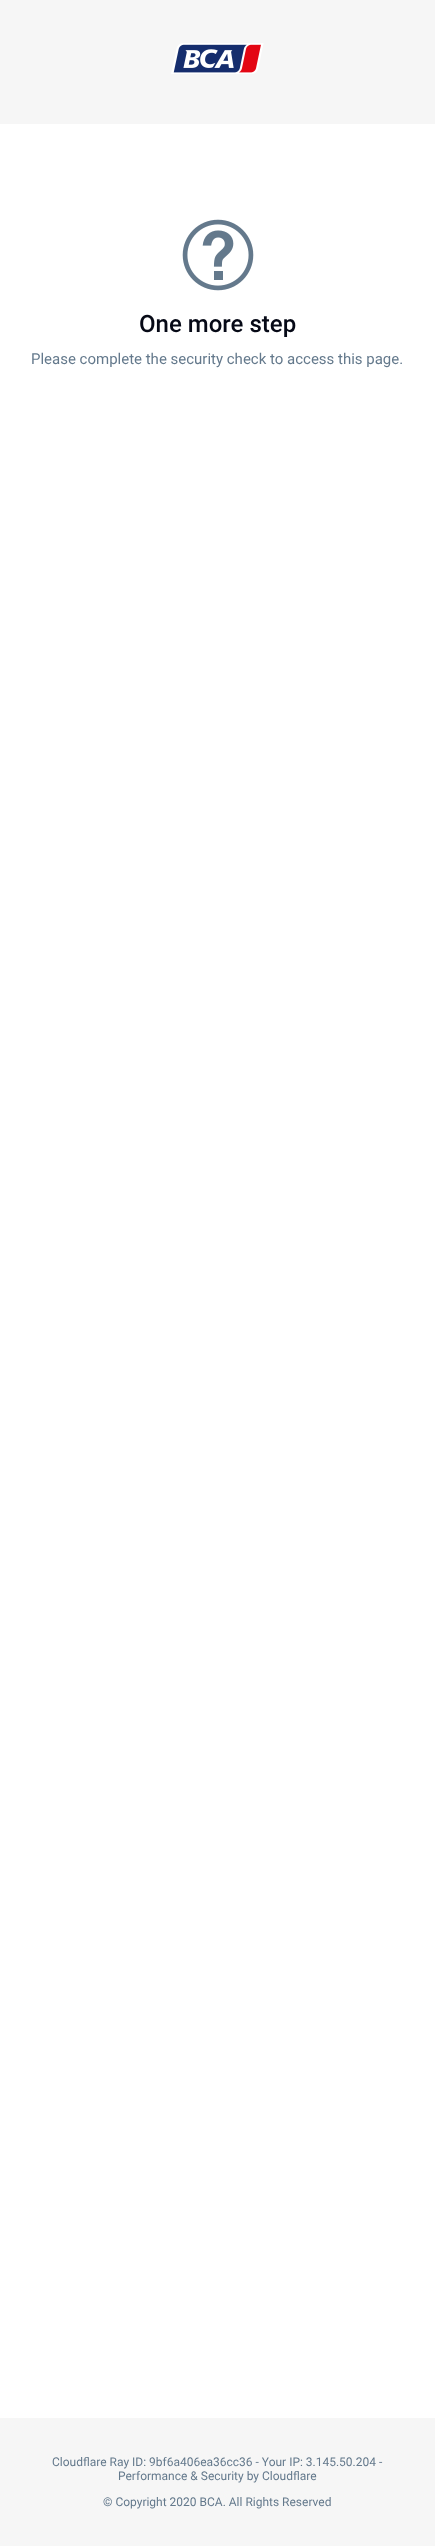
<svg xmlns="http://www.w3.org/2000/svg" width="435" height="2546">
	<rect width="100%" height="100%" fill="#FFFFFF" />
	<rect x="0" y="0" width="435" height="124" fill="#F6F6F6" />
	<image x="171" y="43" width="93" height="31" href="assets/img1.png" />
	<image x="182" y="219" width="72" height="72" href="assets/img2.png" />
	<text x="139" y="332" font-family="Roboto" font-size="24" font-weight="500" fill="#060916">One more step</text>
	<text x="31" y="364" font-family="Roboto" font-size="15" fill="#64798C">Please complete the security check to access this page.</text>
	<rect x="0" y="2418" width="435" height="128" fill="#F6F6F6" />
	<g font-family="Roboto" font-size="12" fill="#64798C">
		<text x="52" y="2466">Cloudflare Ray ID: 9bf6a406ea36cc36 - Your IP: 3.145.50.204 -</text>
		<text x="118" y="2480">Performance &amp; Security by Cloudflare</text>
		<text x="103" y="2506">© Copyright 2020 BCA. All Rights Reserved</text>
	</g>
</svg>
